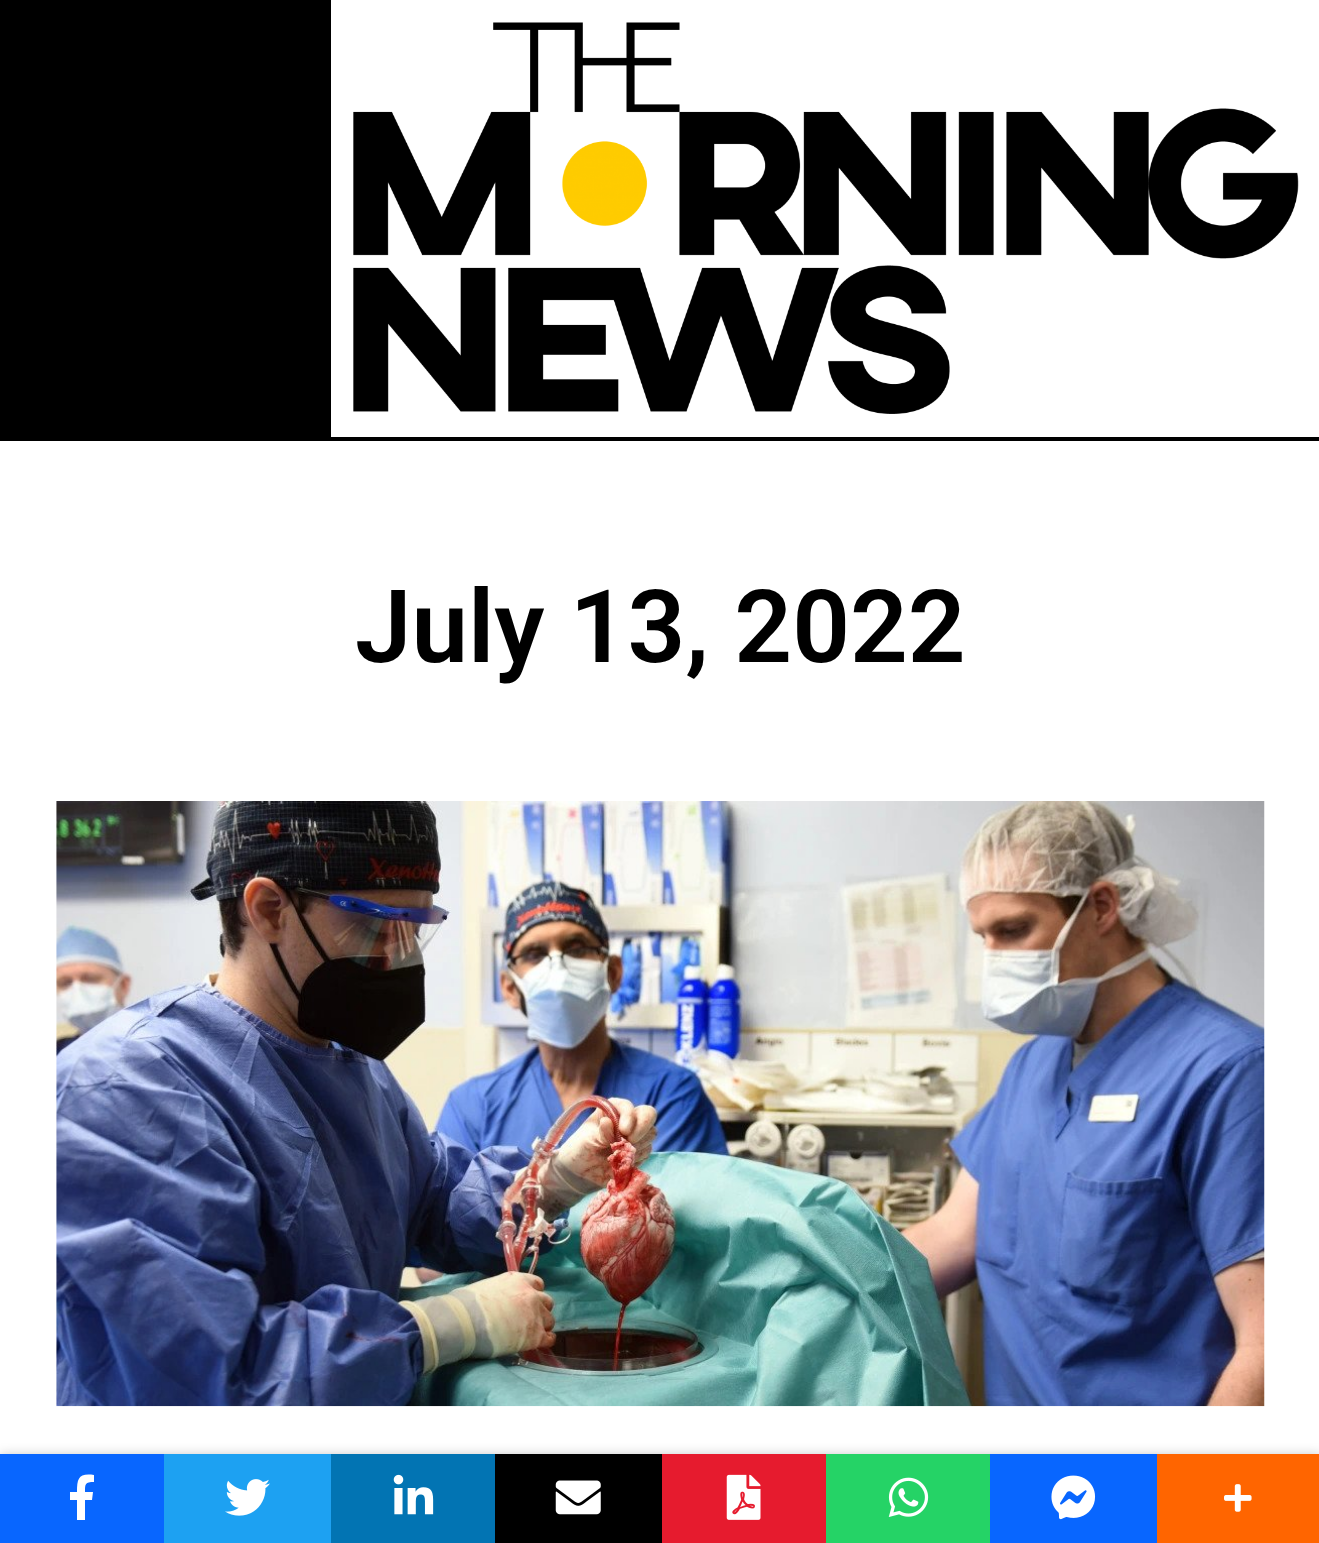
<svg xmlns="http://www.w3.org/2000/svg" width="1319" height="1543">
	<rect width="100%" height="100%" fill="#FFFFFF" />
	<rect x="0" y="437" width="1319" height="4" fill="#000000" />
	<rect x="0" y="0" width="331" height="437" fill="#000000" />
	<image x="353" y="22" width="946" height="392" href="assets/img1.png" />
	<text x="355" y="662" font-family="Roboto" font-size="101.25" font-weight="600" fill="#000000">July 13, 2022</text>
	<image x="56" y="801" width="1209" height="606" href="assets/img2.png" />
	<rect x="0" y="1454" width="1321" height="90" fill="#000000" fill-opacity="0.2" filter="blur(5.5px)" />
	<rect x="0" y="1454" width="164" height="89" fill="#0866FF" />
	<path d="M92 1500H85V1520H77V1500H70V1492H77C77 1478 79 1473 94 1475V1482C85 1482 85 1484 85 1492H93Z" fill="#FFFFFF" />
	<rect x="164" y="1454" width="167" height="89" fill="#1DA1F2" />
	<image x="225" y="1479" width="45" height="37" href="assets/img3.png" />
	<rect x="331" y="1454" width="164" height="89" fill="#0274B3" />
	<image x="393" y="1474" width="41" height="41" href="assets/img4.png" />
	<rect x="495" y="1454" width="167" height="89" fill="#000000" />
	<image x="555" y="1480" width="46" height="35" href="assets/img5.png" />
	<rect x="662" y="1454" width="164" height="89" fill="#E61B2E" />
	<image x="726" y="1474" width="35" height="46" href="assets/img6.png" />
	<rect x="826" y="1454" width="164" height="89" fill="#25D366" />
	<image x="888" y="1477" width="41" height="40" href="assets/img7.png" />
	<rect x="990" y="1454" width="167" height="89" fill="#0866FF" />
	<image x="1051" y="1475" width="45" height="45" href="assets/img8.png" />
	<rect x="1157" y="1454" width="162" height="89" fill="#FF6500" />
	<image x="1224" y="1484" width="28" height="28" href="assets/img9.png" />
</svg>
